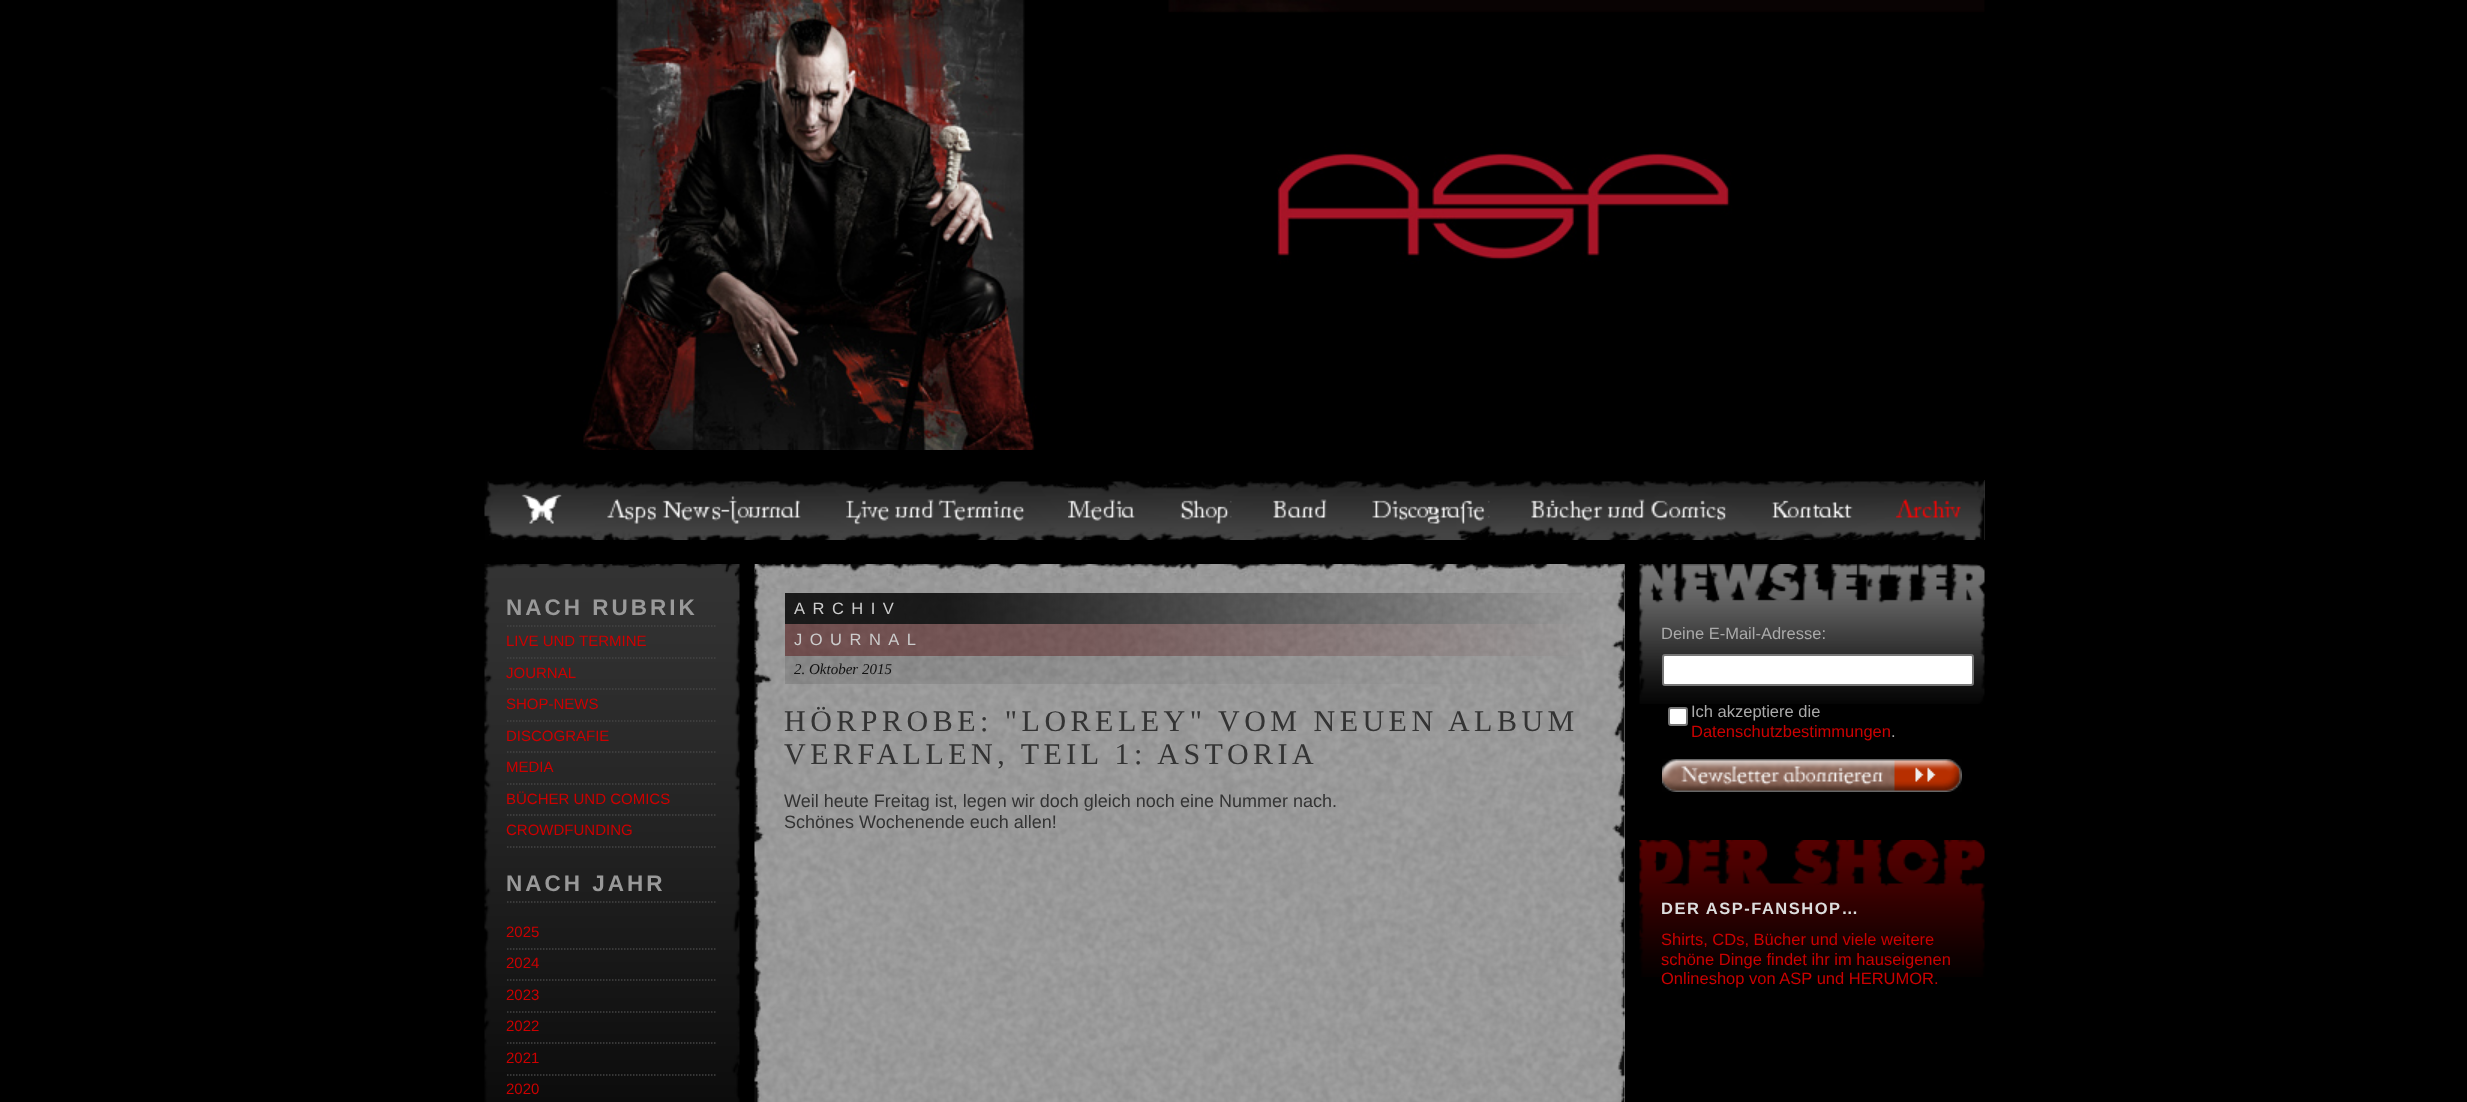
<svg xmlns="http://www.w3.org/2000/svg" width="2467" height="1102">
	<rect width="100%" height="100%" fill="#000000" />
	<image x="583" y="0" width="1402" height="450" href="assets/img1.png" />
	<rect x="1984" y="480" width="1" height="60" fill="#363636" />
	<image x="484" y="480" width="1501" height="60" href="assets/img2.png" />
	<image x="521" y="494" width="41" height="30" href="assets/img3.png" />
	<image x="607" y="496" width="194" height="28" href="assets/img4.png" />
	<image x="846" y="499" width="179" height="26" href="assets/img5.png" />
	<image x="1068" y="499" width="67" height="22" href="assets/img6.png" />
	<image x="1180" y="499" width="52" height="25" href="assets/img7.png" />
	<image x="1273" y="499" width="54" height="19" href="assets/img8.png" />
	<image x="1372" y="500" width="118" height="24" href="assets/img9.png" />
	<image x="1531" y="499" width="195" height="22" href="assets/img10.png" />
	<image x="1771" y="500" width="82" height="18" href="assets/img11.png" />
	<image x="1896" y="499" width="65" height="19" href="assets/img12.png" />
	<image x="484" y="564" width="256" height="538" href="assets/img13.png" />
	<path d="M507 626H717" fill="none" stroke="#444444" stroke-width="1.5" stroke-dasharray="1.5 1.5" />
	<text x="506" y="615" font-family="Liberation Sans" font-size="22.5" font-weight="700" letter-spacing="3" fill="#999999">NACH RUBRIK</text>
	<path d="M507 658H717" fill="none" stroke="#444444" stroke-width="1.5" stroke-dasharray="1.5 1.5" />
	<text x="506" y="646" font-family="Liberation Sans" font-size="15" fill="#CC0000">LIVE UND TERMINE</text>
	<path d="M507 689H717" fill="none" stroke="#444444" stroke-width="1.5" stroke-dasharray="1.5 1.5" />
	<text x="506" y="678" font-family="Liberation Sans" font-size="15" fill="#CC0000">JOURNAL</text>
	<path d="M507 721H717" fill="none" stroke="#444444" stroke-width="1.5" stroke-dasharray="1.5 1.5" />
	<text x="506" y="709" font-family="Liberation Sans" font-size="15" fill="#CC0000">SHOP-NEWS</text>
	<path d="M507 752H717" fill="none" stroke="#444444" stroke-width="1.5" stroke-dasharray="1.5 1.5" />
	<text x="506" y="741" font-family="Liberation Sans" font-size="15" fill="#CC0000">DISCOGRAFIE</text>
	<path d="M507 784H717" fill="none" stroke="#444444" stroke-width="1.5" stroke-dasharray="1.5 1.5" />
	<text x="506" y="772" font-family="Liberation Sans" font-size="15" fill="#CC0000">MEDIA</text>
	<path d="M507 815H717" fill="none" stroke="#444444" stroke-width="1.5" stroke-dasharray="1.5 1.5" />
	<text x="506" y="804" font-family="Liberation Sans" font-size="15" fill="#CC0000">BÜCHER UND COMICS</text>
	<path d="M507 847H717" fill="none" stroke="#444444" stroke-width="1.5" stroke-dasharray="1.5 1.5" />
	<text x="506" y="835" font-family="Liberation Sans" font-size="15" fill="#CC0000">CROWDFUNDING</text>
	<path d="M507 902H717" fill="none" stroke="#444444" stroke-width="1.5" stroke-dasharray="1.5 1.5" />
	<text x="506" y="891" font-family="Liberation Sans" font-size="22.5" font-weight="700" letter-spacing="3" fill="#999999">NACH JAHR</text>
	<path d="M507 949H717" fill="none" stroke="#444444" stroke-width="1.5" stroke-dasharray="1.5 1.5" />
	<text x="506" y="937" font-family="Liberation Sans" font-size="15" fill="#CC0000">2025</text>
	<path d="M507 980H717" fill="none" stroke="#444444" stroke-width="1.5" stroke-dasharray="1.5 1.5" />
	<text x="506" y="968" font-family="Liberation Sans" font-size="15" fill="#CC0000">2024</text>
	<path d="M507 1012H717" fill="none" stroke="#444444" stroke-width="1.5" stroke-dasharray="1.5 1.5" />
	<text x="506" y="1000" font-family="Liberation Sans" font-size="15" fill="#CC0000">2023</text>
	<path d="M507 1043H717" fill="none" stroke="#444444" stroke-width="1.5" stroke-dasharray="1.5 1.5" />
	<text x="506" y="1031" font-family="Liberation Sans" font-size="15" fill="#CC0000">2022</text>
	<path d="M507 1075H717" fill="none" stroke="#444444" stroke-width="1.5" stroke-dasharray="1.5 1.5" />
	<g font-family="Liberation Sans" font-size="15" fill="#CC0000">
		<text x="506" y="1063">2021</text>
		<text x="506" y="1094">2020</text>
	</g>
	<rect x="1624" y="564" width="1" height="538" fill="#999999" />
	<image x="754" y="564" width="871" height="538" href="assets/img14.png" />
	<image x="754" y="564" width="871" height="29" href="assets/img15.png" />
	<g font-family="Liberation Sans" font-size="16.5" letter-spacing="7.5" fill="#CCCCCC">
		<text x="794" y="614">ARCHIV</text>
		<text x="794" y="645">JOURNAL</text>
	</g>
	<text x="794" y="674" font-family="Liberation Serif" font-size="15" font-style="italic" fill="#111111">2. Oktober 2015</text>
	<g font-family="Liberation Serif" font-size="30" letter-spacing="4.5" fill="#333333">
		<text x="784" y="731">HÖRPROBE: "LORELEY" VOM NEUEN ALBUM</text>
		<text x="784" y="764">VERFALLEN, TEIL 1: ASTORIA</text>
	</g>
	<g font-family="Liberation Sans" font-size="18" fill="#333333">
		<text x="784" y="807">Weil heute Freitag ist, legen wir doch gleich noch eine Nummer nach.</text>
		<text x="784" y="828">Schönes Wochenende euch allen!</text>
	</g>
	<image x="1639" y="564" width="346" height="140" href="assets/img16.png" />
	<text x="1661" y="639" font-family="Liberation Sans" font-size="16.5" fill="#AAAAAA">Deine E-Mail-Adresse:</text>
	<rect x="1663" y="655" width="310" height="30" rx="2" fill="#FFFFFF" stroke="#767676" stroke-width="2" />
	<rect x="1669" y="708" width="18" height="17" rx="2" fill="#FFFFFF" stroke="#767676" stroke-width="2" />
	<text x="1691" y="717" font-family="Liberation Sans" font-size="16.5" fill="#AAAAAA">Ich akzeptiere die</text>
	<text x="1691" y="737" font-family="Liberation Sans" font-size="16.5" fill="#CC0000">Datenschutzbestimmungen</text>
	<text x="1891" y="737" font-family="Liberation Sans" font-size="16.5" fill="#AAAAAA">.</text>
	<image x="1662" y="759" width="300" height="33" href="assets/img17.png" />
	<image x="1639" y="840" width="346" height="137" href="assets/img18.png" />
	<text x="1661" y="914" font-family="Liberation Sans" font-size="16.5" font-weight="700" letter-spacing="1.5" fill="#DDDDDD">DER ASP-FANSHOP…</text>
	<g font-family="Liberation Sans" font-size="16.5" fill="#CC0000">
		<text x="1661" y="945">Shirts, CDs, Bücher und viele weitere</text>
		<text x="1661" y="965">schöne Dinge findet ihr im hauseigenen</text>
		<text x="1661" y="984">Onlineshop von ASP und HERUMOR.</text>
	</g>
</svg>
